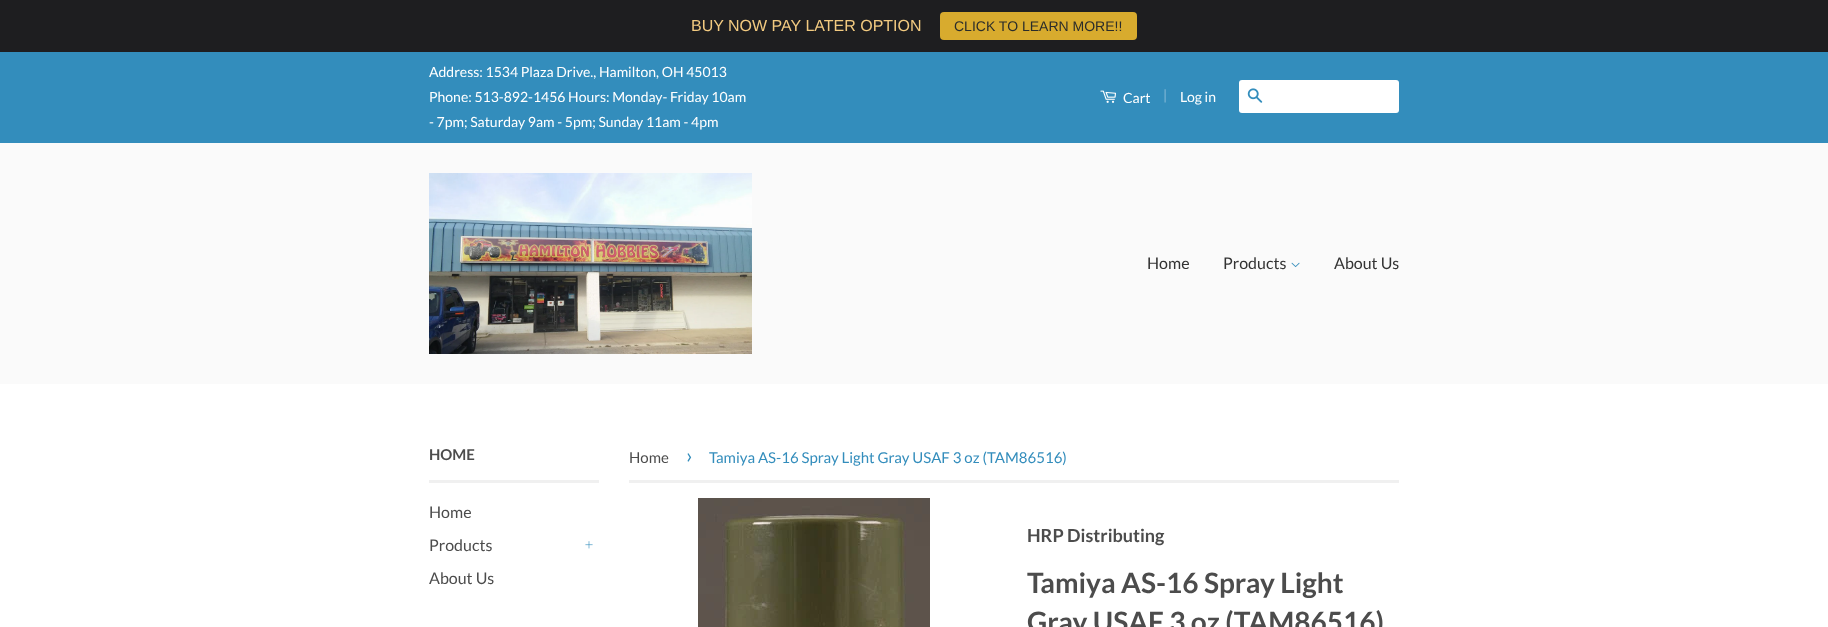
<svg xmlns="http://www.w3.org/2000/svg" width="1828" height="627">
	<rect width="100%" height="100%" fill="#FFFFFF" />
	<rect x="0" y="0" width="1828" height="52" fill="#1E1E20" />
	<text x="691" y="31" font-family="Liberation Sans" font-size="16" fill="#F2CA80">BUY NOW PAY LATER OPTION</text>
	<rect x="940" y="12" width="197" height="28" rx="4" fill="#D8AB2E" />
	<text x="954" y="31" font-family="Liberation Sans" font-size="14" fill="#2A2C2B">CLICK TO LEARN MORE!!</text>
	<rect x="0" y="52" width="1828" height="91" fill="#338DBC" />
	<g font-family="Lato" font-size="14" fill="#FFFFFF">
		<text x="429" y="77">Address: 1534 Plaza Drive., Hamilton, OH 45013</text>
		<text x="429" y="102">Phone: 513-892-1456 Hours: Monday- Friday 10am</text>
		<text x="429" y="127">- 7pm; Saturday 9am - 5pm; Sunday 11am - 4pm</text>
	</g>
	<image x="1100" y="90" width="16" height="13" href="assets/img1.png" />
	<text x="1123" y="103" font-family="Lato" font-size="14" fill="#FFFFFF">Cart</text>
	<text x="1163" y="100" font-family="Lato" font-size="14" fill="#85BBD7">|</text>
	<text x="1180" y="102" font-family="Lato" font-size="14" fill="#FFFFFF">Log in</text>
	<rect x="1239" y="80" width="160" height="33" rx="3" fill="#FFFFFF" />
	<image x="1247" y="88" width="16" height="15" href="assets/img2.png" />
	<rect x="0" y="143" width="1828" height="241" fill="#FAFAFA" />
	<image x="429" y="173" width="323" height="181" href="assets/img3.png" />
	<g font-family="Lato" font-size="16" fill="#333333">
		<text x="1147" y="269">Home</text>
		<text x="1223" y="269">Products</text>
	</g>
	<image x="1291" y="262" width="9" height="6" href="assets/img4.png" />
	<text x="1334" y="269" font-family="Lato" font-size="16" fill="#333333">About Us</text>
	<rect x="429" y="480" width="170" height="3" fill="#F0F0F0" />
	<text x="429" y="460" font-family="Lato" font-size="15" font-weight="700" fill="#4C4C4C">HOME</text>
	<g font-family="Lato" font-size="16" fill="#4C4C4C">
		<text x="429" y="518">Home</text>
		<text x="429" y="551">Products</text>
	</g>
	<image x="585" y="541" width="8" height="8" href="assets/img5.png" />
	<text x="429" y="584" font-family="Lato" font-size="16" fill="#4C4C4C">About Us</text>
	<rect x="629" y="480" width="770" height="3" fill="#F0F0F0" />
	<text x="629" y="463" font-family="Lato" font-size="15" fill="#4C4C4C">Home</text>
	<text x="686" y="463" font-family="Lato" font-size="21" fill="#338DBC">›</text>
	<text x="709" y="463" font-family="Lato" font-size="15" fill="#338DBC">Tamiya AS-16 Spray Light Gray USAF 3 oz (TAM86516)</text>
	<image x="698" y="498" width="232" height="129" href="assets/img6.png" />
	<text x="1027" y="542" font-family="Lato" font-size="18" font-weight="700" fill="#4C4C4C">HRP Distributing</text>
	<g font-family="Lato" font-size="28" font-weight="700" fill="#4C4C4C">
		<text x="1027" y="593">Tamiya AS-16 Spray Light</text>
		<text x="1027" y="632">Gray USAF 3 oz (TAM86516)</text>
	</g>
</svg>
